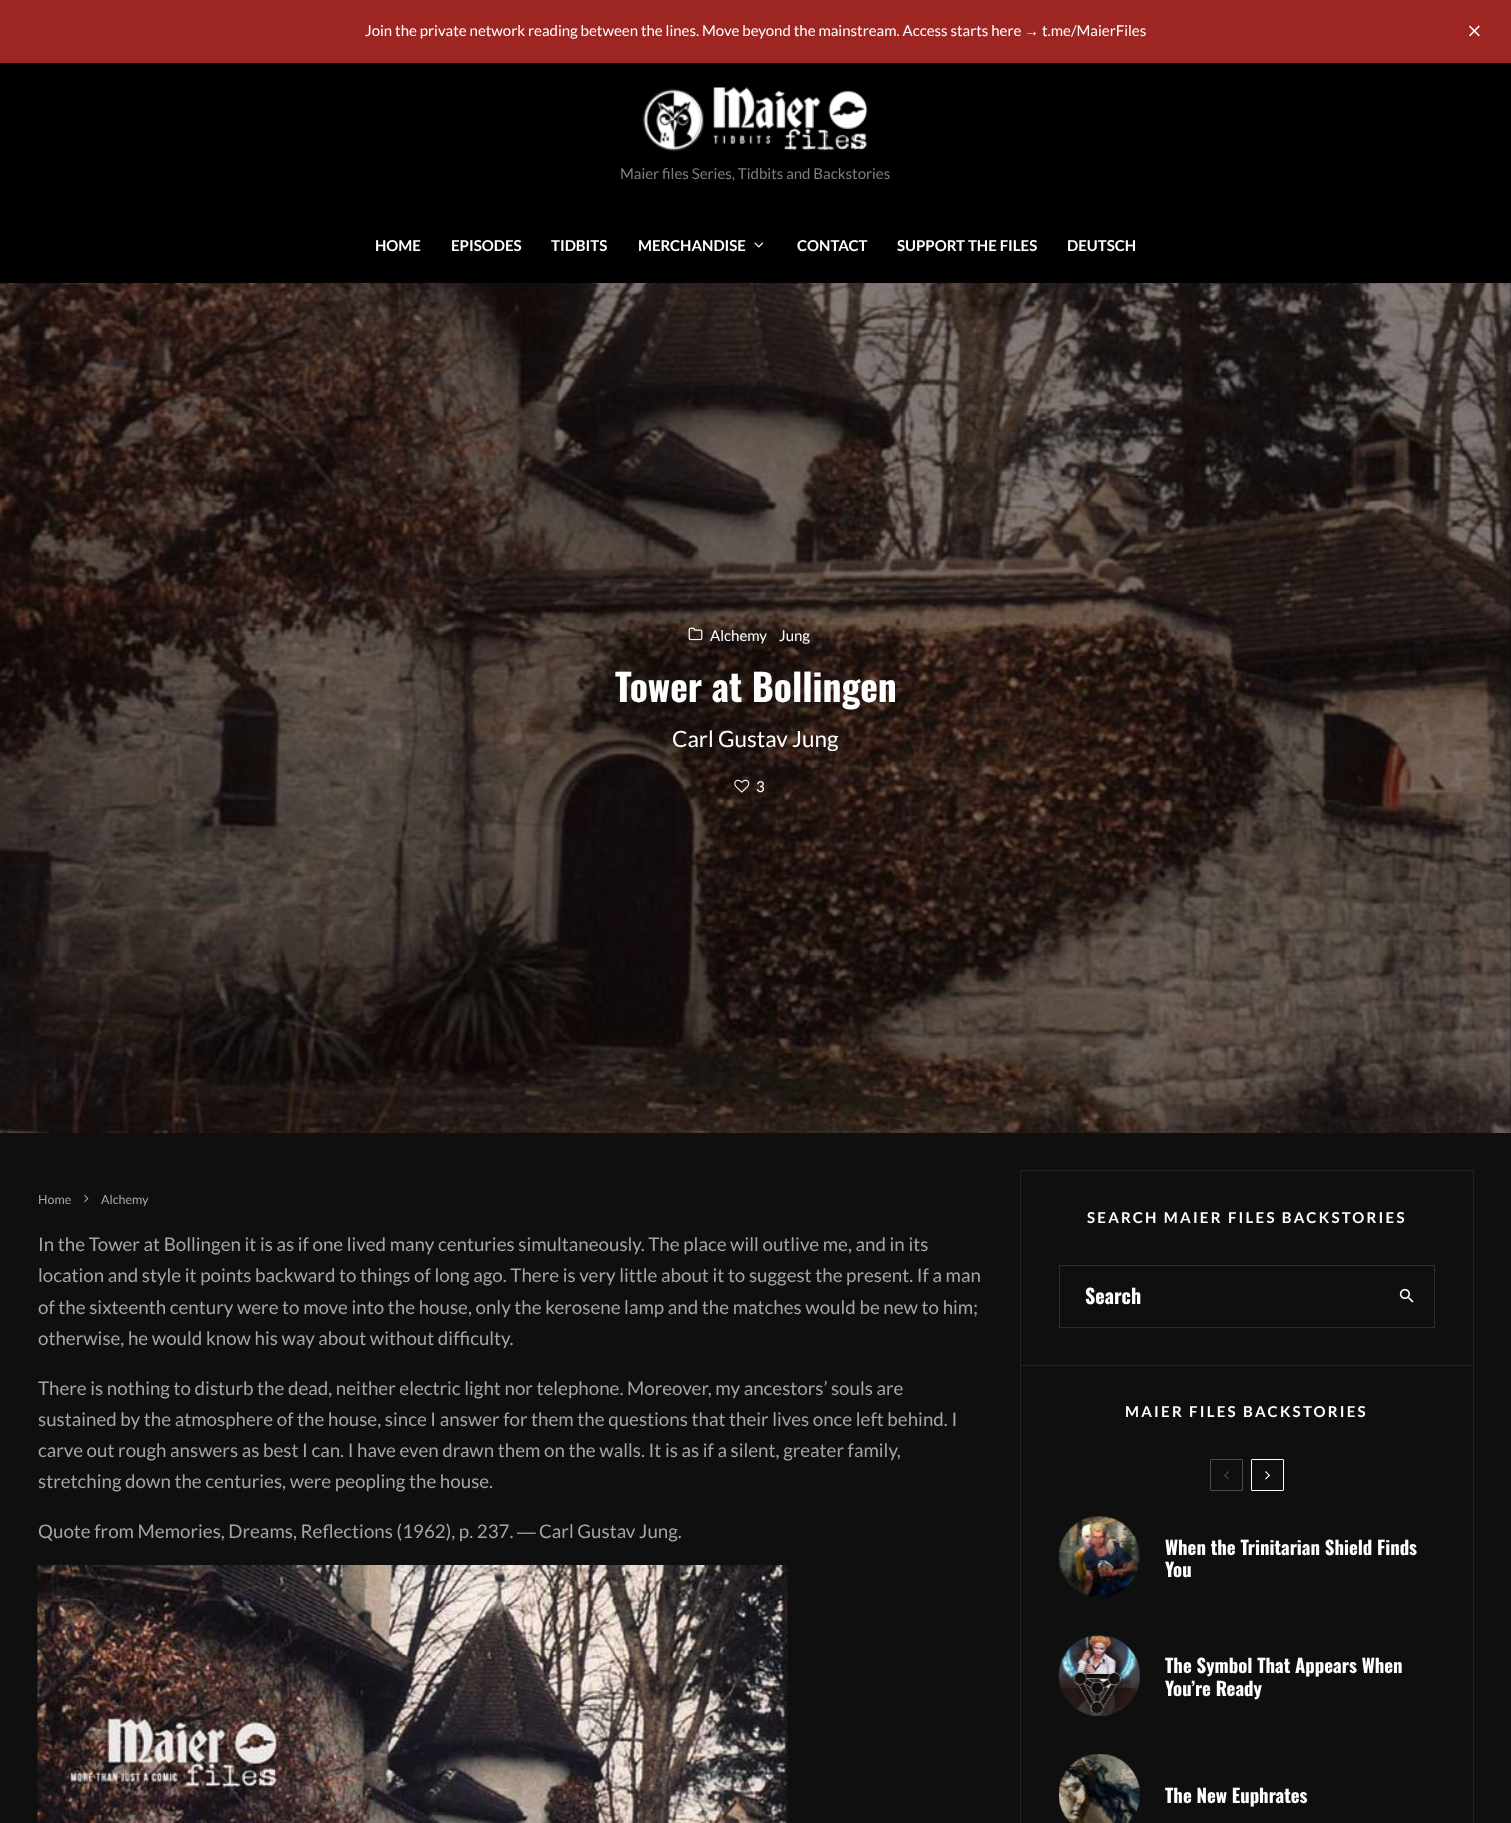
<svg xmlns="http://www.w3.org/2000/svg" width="1511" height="1823">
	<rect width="100%" height="100%" fill="#0F0F0F" />
	<rect x="0" y="0" width="1511" height="63" fill="#9E2622" />
	<text x="365" y="36" font-family="Lato" font-size="15" fill="#FFFFFF">Join the private network reading between the lines. Move beyond the mainstream. Access starts here</text>
	<text x="1024" y="36" font-family="Liberation Sans" font-size="15" fill="#FFFFFF">→</text>
	<text x="1042" y="36" font-family="Lato" font-size="15" fill="#FFFFFF">t.me/MaierFiles</text>
	<image x="1469" y="25" width="11" height="12" href="assets/img1.png" />
	<rect x="0" y="63" width="1511" height="220" fill="#000000" />
	<image x="642" y="87" width="226" height="65" href="assets/img2.png" />
	<text x="620" y="179" font-family="Lato" font-size="15" fill="#7F7F7F">Maier files Series, Tidbits and Backstories</text>
	<g font-family="Lato" font-size="15" font-weight="700" fill="#FFFFFF">
		<text x="375" y="251">HOME</text>
		<text x="451" y="251">EPISODES</text>
		<text x="551" y="251">TIDBITS</text>
		<text x="638" y="251">MERCHANDISE</text>
	</g>
	<image x="754" y="242" width="10" height="6" href="assets/img3.png" />
	<g font-family="Lato" font-size="15" font-weight="700" fill="#FFFFFF">
		<text x="797" y="251">CONTACT</text>
		<text x="897" y="251">SUPPORT THE FILES</text>
		<text x="1067" y="251">DEUTSCH</text>
	</g>
	<image x="0" y="283" width="1511" height="850" href="assets/img4.png" />
	<image x="688" y="627" width="15" height="14" href="assets/img5.png" />
	<g font-family="Lato" font-size="15" fill="#FFFFFF">
		<text x="710" y="641">Alchemy</text>
		<text x="779" y="641">Jung</text>
	</g>
	<text x="615" y="702" font-family="Oswald" font-size="37.5" font-weight="700" fill="#FFFFFF">Tower at Bollingen</text>
	<text x="672" y="747" font-family="Lato" font-size="22.5" fill="#FFFFFF">Carl Gustav Jung</text>
	<image x="734" y="779" width="16" height="14" href="assets/img6.png" />
	<text x="756" y="792" font-family="Lato" font-size="15" fill="#FFFFFF">3</text>
	<text x="38" y="1204" font-family="Lato" font-size="12.5" fill="#A5A5A5">Home</text>
	<image x="84" y="1195" width="5" height="8" href="assets/img7.png" />
	<text x="101" y="1204" font-family="Lato" font-size="12.5" fill="#A5A5A5">Alchemy</text>
	<g font-family="Lato" font-size="18.75" fill="#A5A5A5">
		<text x="38" y="1251">In the Tower at Bollingen it is as if one lived many centuries simultaneously. The place will outlive me, and in its</text>
		<text x="38" y="1282">location and style it points backward to things of long ago. There is very little about it to suggest the present. If a man</text>
		<text x="38" y="1314">of the sixteenth century were to move into the house, only the kerosene lamp and the matches would be new to him;</text>
		<text x="38" y="1345">otherwise, he would know his way about without difficulty.</text>
		<text x="38" y="1395">There is nothing to disturb the dead, neither electric light nor telephone. Moreover, my ancestors’ souls are</text>
		<text x="38" y="1426">sustained by the atmosphere of the house, since I answer for them the questions that their lives once left behind. I</text>
		<text x="38" y="1457">carve out rough answers as best I can. I have even drawn them on the walls. It is as if a silent, greater family,</text>
		<text x="38" y="1488">stretching down the centuries, were peopling the house.</text>
		<text x="38" y="1538">Quote from Memories, Dreams, Reflections (1962), p. 237.</text>
	</g>
	<text x="517" y="1538" font-family="Liberation Sans" font-size="18.75" fill="#A5A5A5">―</text>
	<text x="539" y="1538" font-family="Lato" font-size="18.75" fill="#A5A5A5">Carl Gustav Jung.</text>
	<image x="37" y="1565" width="751" height="258" href="assets/img8.png" />
	<rect x="1020.5" y="1170.5" width="453" height="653" fill="none" stroke="#232323" />
	<rect x="1021" y="1365" width="452" height="1" fill="#232323" />
	<text x="1087" y="1223" font-family="Lato" font-size="15" font-weight="700" letter-spacing="2.25" fill="#FFFFFF">SEARCH MAIER FILES BACKSTORIES</text>
	<rect x="1059.5" y="1265.5" width="375" height="62" fill="none" stroke="#2D2D2D" />
	<text x="1085" y="1304" font-family="Oswald" font-size="20" font-weight="700" fill="#FFFFFF">Search</text>
	<image x="1399" y="1288" width="15" height="15" href="assets/img9.png" />
	<text x="1125" y="1417" font-family="Lato" font-size="15" font-weight="700" letter-spacing="2.25" fill="#FFFFFF">MAIER FILES BACKSTORIES</text>
	<rect x="1210.5" y="1459.5" width="32" height="31" rx="0.5" fill="none" stroke="#4B4B4B" />
	<image x="1224" y="1471" width="5" height="9" href="assets/img10.png" />
	<rect x="1251.5" y="1459.5" width="32" height="31" rx="0.5" fill="none" stroke="#FFFFFF" />
	<image x="1265" y="1471" width="5" height="9" href="assets/img11.png" />
	<image x="1058" y="1516" width="82" height="82" href="assets/img12.png" />
	<g font-family="Oswald" font-size="18.75" font-weight="700" fill="#FFFFFF">
		<text x="1165" y="1555">When the Trinitarian Shield Finds</text>
		<text x="1165" y="1577">You</text>
	</g>
	<image x="1058" y="1635" width="82" height="81" href="assets/img13.png" />
	<g font-family="Oswald" font-size="18.75" font-weight="700" fill="#FFFFFF">
		<text x="1165" y="1673">The Symbol That Appears When</text>
		<text x="1165" y="1696">You’re Ready</text>
	</g>
	<image x="1059" y="1754" width="81" height="69" href="assets/img14.png" />
	<text x="1165" y="1803" font-family="Oswald" font-size="18.75" font-weight="700" fill="#FFFFFF">The New Euphrates</text>
</svg>
